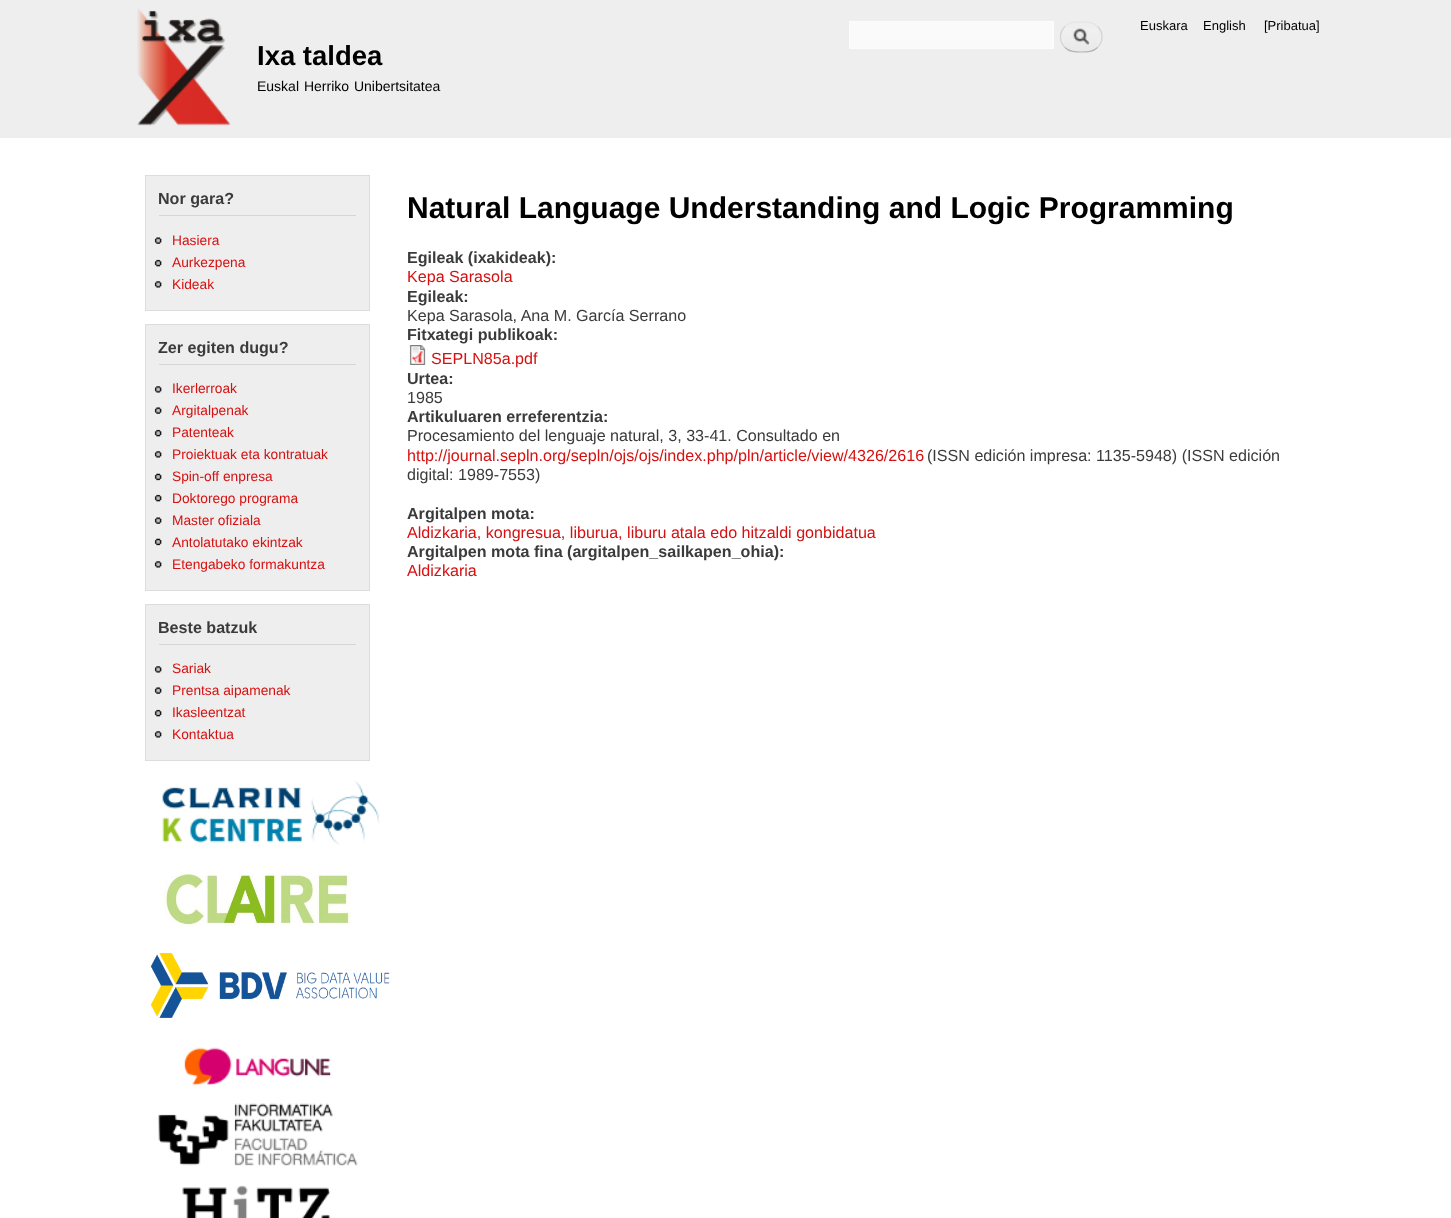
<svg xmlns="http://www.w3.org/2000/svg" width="1451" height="1218">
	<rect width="100%" height="100%" fill="#FFFFFF" />
	<rect x="0" y="0" width="1451" height="138" fill="#EEEEEE" />
	<image x="137" y="8" width="94" height="118" href="assets/img1.png" />
	<rect x="849.5" y="21.5" width="204" height="27" fill="#FAFAFA" stroke="#FCFCFC" />
	<image x="1064" y="28" width="33" height="24" href="assets/img2.png" />
	<path d="M1065 26.5C1069.5 21.5 1075 22 1081 22C1087.5 22 1093 21.5 1097.5 26.5" fill="none" stroke="#E4E4E4" stroke-width="1.2" />
	<path d="M1097.5 26.5C1103.5 32 1103.5 41.5 1097.5 47.5" fill="none" stroke="#D2D2D2" stroke-width="1.2" />
	<path d="M1097.5 47.5C1093 52 1087.5 52 1081 52C1075 52 1069.5 52 1065 47.5" fill="none" stroke="#B4B4B4" stroke-width="1.2" />
	<path d="M1065 47.5C1059 41.5 1059 32 1065 26.5" fill="none" stroke="#D2D2D2" stroke-width="1.2" />
	<g font-family="Liberation Sans" font-size="13" fill="#000000">
		<text x="1140" y="30">Euskara</text>
		<text x="1203" y="30">English</text>
		<text x="1264" y="30">[Pribatua]</text>
	</g>
	<text x="257" y="65" font-family="Liberation Sans" font-size="27.5" font-weight="700" fill="#000000">Ixa taldea</text>
	<text x="257" y="91" word-spacing="1" font-family="Liberation Sans" font-size="14" fill="#000000">Euskal Herriko Unibertsitatea</text>
	<rect x="145.5" y="175.5" width="224" height="135" fill="#EEEEEE" stroke="#DDDDDD" />
	<rect x="159" y="215" width="197" height="1" fill="#D6D6D6" />
	<text x="158" y="204" font-family="Liberation Sans" font-size="16.1" font-weight="700" fill="#3B3B3B">Nor gara?</text>
	<image x="154" y="237" width="8" height="7" href="assets/img3.png" />
	<text x="172" y="245" font-family="Liberation Sans" font-size="13.75" fill="#D61111">Hasiera</text>
	<image x="154" y="259" width="8" height="8" href="assets/img4.png" />
	<text x="172" y="267" font-family="Liberation Sans" font-size="13.75" fill="#D61111">Aurkezpena</text>
	<image x="154" y="281" width="8" height="7" href="assets/img5.png" />
	<text x="172" y="289" font-family="Liberation Sans" font-size="13.75" fill="#D61111">Kideak</text>
	<rect x="145.5" y="324.5" width="224" height="266" fill="#EEEEEE" stroke="#DDDDDD" />
	<rect x="159" y="364" width="197" height="1" fill="#D6D6D6" />
	<text x="158" y="353" font-family="Liberation Sans" font-size="16.1" font-weight="700" fill="#3B3B3B">Zer egiten dugu?</text>
	<image x="154" y="386" width="8" height="7" href="assets/img5.png" />
	<text x="172" y="393" font-family="Liberation Sans" font-size="13.75" fill="#D61111">Ikerlerroak</text>
	<image x="154" y="407" width="8" height="7" href="assets/img3.png" />
	<text x="172" y="415" font-family="Liberation Sans" font-size="13.75" fill="#D61111">Argitalpenak</text>
	<image x="154" y="429" width="8" height="8" href="assets/img4.png" />
	<text x="172" y="437" font-family="Liberation Sans" font-size="13.75" fill="#D61111">Patenteak</text>
	<image x="154" y="451" width="8" height="7" href="assets/img5.png" />
	<text x="172" y="459" font-family="Liberation Sans" font-size="13.75" fill="#D61111">Proiektuak eta kontratuak</text>
	<image x="154" y="473" width="8" height="8" href="assets/img6.png" />
	<text x="172" y="481" font-family="Liberation Sans" font-size="13.75" fill="#D61111">Spin-off enpresa</text>
	<image x="154" y="494" width="8" height="8" href="assets/img4.png" />
	<text x="172" y="503" font-family="Liberation Sans" font-size="13.75" fill="#D61111">Doktorego programa</text>
	<image x="154" y="517" width="8" height="7" href="assets/img3.png" />
	<text x="172" y="525" font-family="Liberation Sans" font-size="13.75" fill="#D61111">Master ofiziala</text>
	<image x="154" y="538" width="8" height="8" href="assets/img6.png" />
	<text x="172" y="547" font-family="Liberation Sans" font-size="13.75" fill="#D61111">Antolatutako ekintzak</text>
	<image x="154" y="561" width="8" height="7" href="assets/img5.png" />
	<text x="172" y="569" font-family="Liberation Sans" font-size="13.75" fill="#D61111">Etengabeko formakuntza</text>
	<rect x="145.5" y="604.5" width="224" height="156" fill="#EEEEEE" stroke="#DDDDDD" />
	<rect x="159" y="644" width="197" height="1" fill="#D6D6D6" />
	<text x="158" y="633" font-family="Liberation Sans" font-size="16.1" font-weight="700" fill="#3B3B3B">Beste batzuk</text>
	<image x="154" y="666" width="8" height="7" href="assets/img5.png" />
	<text x="172" y="673" font-family="Liberation Sans" font-size="13.75" fill="#D61111">Sariak</text>
	<image x="154" y="687" width="8" height="7" href="assets/img3.png" />
	<text x="172" y="695" font-family="Liberation Sans" font-size="13.75" fill="#D61111">Prentsa aipamenak</text>
	<image x="154" y="709" width="8" height="8" href="assets/img4.png" />
	<text x="172" y="717" font-family="Liberation Sans" font-size="13.75" fill="#D61111">Ikasleentzat</text>
	<image x="154" y="731" width="8" height="7" href="assets/img5.png" />
	<text x="172" y="739" font-family="Liberation Sans" font-size="13.75" fill="#D61111">Kontaktua</text>
	<image x="162" y="781" width="218" height="64" href="assets/img7.png" />
	<image x="164" y="871" width="187" height="56" href="assets/img8.png" />
	<image x="150" y="952" width="240" height="66" href="assets/img9.png" />
	<image x="183" y="1047" width="149" height="39" href="assets/img10.png" />
	<image x="157" y="1103" width="201" height="63" href="assets/img11.png" />
	<image x="182" y="1185" width="149" height="33" href="assets/img12.png" />
	<text x="407" y="218" font-family="Liberation Sans" font-size="30" font-weight="700" fill="#000000">Natural Language Understanding and Logic Programming</text>
	<text x="407" y="263" font-family="Liberation Sans" font-size="16.1" font-weight="700" fill="#3B3B3B">Egileak (ixakideak):</text>
	<text x="407" y="282" font-family="Liberation Sans" font-size="16.1" fill="#D61111">Kepa Sarasola</text>
	<text x="407" y="302" font-family="Liberation Sans" font-size="16.1" font-weight="700" fill="#3B3B3B">Egileak:</text>
	<text x="407" y="321" font-family="Liberation Sans" font-size="16.1" fill="#3B3B3B">Kepa Sarasola, Ana M. García Serrano</text>
	<text x="407" y="340" font-family="Liberation Sans" font-size="16.1" font-weight="700" fill="#3B3B3B">Fitxategi publikoak:</text>
	<image x="409" y="345" width="17" height="20" href="assets/img13.png" />
	<text x="431" y="364" font-family="Liberation Sans" font-size="16.1" fill="#D61111">SEPLN85a.pdf</text>
	<text x="407" y="384" font-family="Liberation Sans" font-size="16.1" font-weight="700" fill="#3B3B3B">Urtea:</text>
	<text x="407" y="403" font-family="Liberation Sans" font-size="16.1" fill="#3B3B3B">1985</text>
	<text x="407" y="422" font-family="Liberation Sans" font-size="16.1" font-weight="700" fill="#3B3B3B">Artikuluaren erreferentzia:</text>
	<text x="407" y="441" font-family="Liberation Sans" font-size="16.1" fill="#3B3B3B">Procesamiento del lenguaje natural, 3, 33-41. Consultado en</text>
	<text x="407" y="461" font-family="Liberation Sans" font-size="16.1" fill="#D61111">http://journal.sepln.org/sepln/ojs/ojs/index.php/pln/article/view/4326/2616</text>
	<g font-family="Liberation Sans" font-size="16.1" fill="#3B3B3B">
		<text x="927" y="461">(ISSN edición impresa: 1135-5948) (ISSN edición</text>
		<text x="407" y="480">digital: 1989-7553)</text>
	</g>
	<text x="407" y="519" font-family="Liberation Sans" font-size="16.1" font-weight="700" fill="#3B3B3B">Argitalpen mota:</text>
	<text x="407" y="538" font-family="Liberation Sans" font-size="16.1" fill="#D61111">Aldizkaria, kongresua, liburua, liburu atala edo hitzaldi gonbidatua</text>
	<text x="407" y="557" font-family="Liberation Sans" font-size="16.1" font-weight="700" fill="#3B3B3B">Argitalpen mota fina (argitalpen_sailkapen_ohia):</text>
	<text x="407" y="576" font-family="Liberation Sans" font-size="16.1" fill="#D61111">Aldizkaria</text>
</svg>
